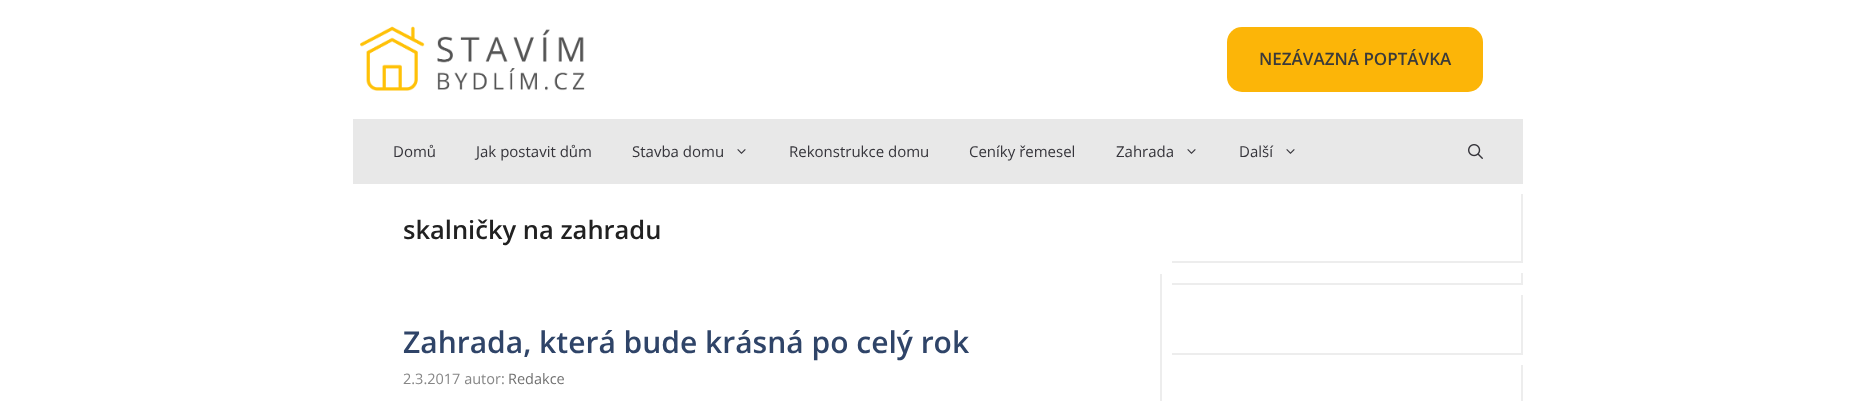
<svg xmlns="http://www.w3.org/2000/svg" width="1876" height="401">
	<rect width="100%" height="100%" fill="#FFFFFF" />
	<image x="360" y="26" width="225" height="65" href="assets/img1.png" />
	<rect x="1227" y="27" width="256" height="65" rx="15" fill="#FCB508" />
	<text x="1259" y="65" font-family="Open Sans" font-size="17" font-weight="600" fill="#3A3A3A">NEZÁVAZNÁ POPTÁVKA</text>
	<rect x="353" y="119" width="1170" height="65" fill="#E8E8E8" />
	<g font-family="Open Sans" font-size="15" fill="#35343A">
		<text x="393" y="157">Domů</text>
		<text x="476" y="157">Jak postavit dům</text>
		<text x="632" y="157">Stavba domu</text>
	</g>
	<image x="737" y="149" width="9" height="5" href="assets/img2.png" />
	<g font-family="Open Sans" font-size="15" fill="#35343A">
		<text x="789" y="157">Rekonstrukce domu</text>
		<text x="969" y="157">Ceníky řemesel</text>
		<text x="1116" y="157">Zahrada</text>
	</g>
	<image x="1187" y="149" width="9" height="5" href="assets/img2.png" />
	<text x="1239" y="157" font-family="Open Sans" font-size="15" fill="#35343A">Další</text>
	<image x="1286" y="149" width="9" height="5" href="assets/img2.png" />
	<image x="1468" y="144" width="15" height="15" href="assets/img3.png" />
	<text x="403" y="239" font-family="Open Sans" font-size="25.5" font-weight="600" fill="#212121">skalničky na zahradu</text>
	<path d="M1162 274V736L1160 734V274Z" fill="#EDEDED" />
	<text x="403" y="353" font-family="Open Sans" font-size="30" font-weight="600" fill="#2F4468">Zahrada, která bude krásná po celý rok</text>
	<text x="403" y="384" font-family="Open Sans" font-size="14.5" fill="#878787">2.3.2017 autor:</text>
	<text x="508" y="384" font-family="Open Sans" font-size="14.5" fill="#727272">Redakce</text>
	<path d="M1523 194V263L1521 261V194Z" fill="#EDEDED" />
	<path d="M1523 263H1172V261H1521Z" fill="#000000" fill-opacity="0.07" />
	<path d="M1523 273V285L1521 283V273Z" fill="#EDEDED" />
	<path d="M1523 285H1172V283H1521Z" fill="#000000" fill-opacity="0.07" />
	<path d="M1523 295V355L1521 353V295Z" fill="#EDEDED" />
	<path d="M1523 355H1172V353H1521Z" fill="#000000" fill-opacity="0.07" />
	<path d="M1523 365V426L1521 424V365Z" fill="#EDEDED" />
</svg>
